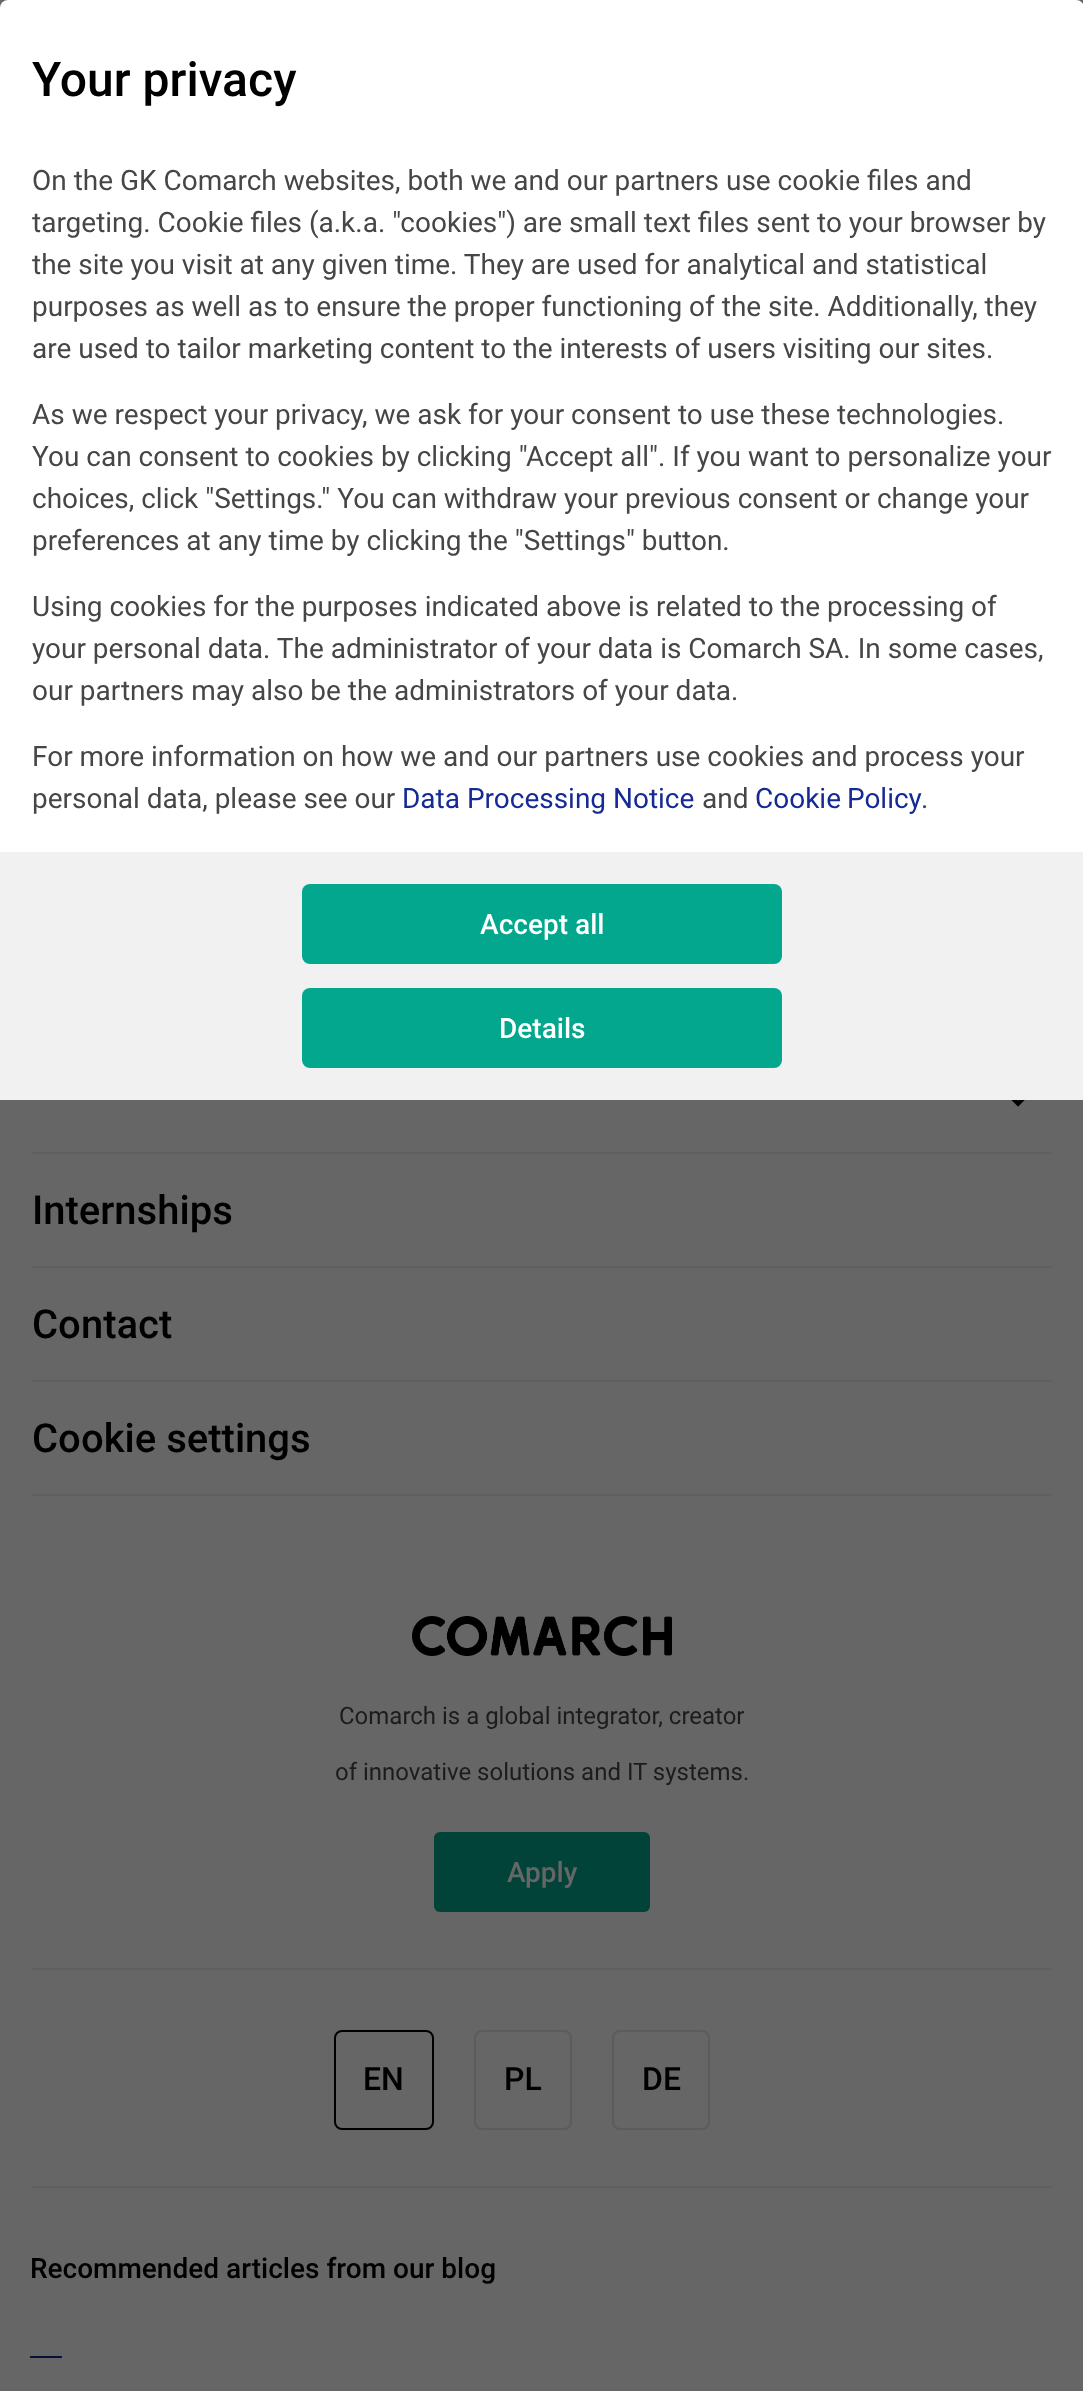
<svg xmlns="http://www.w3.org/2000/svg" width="1083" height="2391">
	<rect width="100%" height="100%" fill="#666666" />
	<rect x="0" y="0" width="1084" height="1100" rx="8" fill="#FFFFFF" />
	<text x="32" y="96" font-family="Roboto" font-size="48" font-weight="500" fill="#000000">Your privacy</text>
	<g font-family="Roboto" font-size="28" fill="#464646">
		<text x="32" y="190">On the GK Comarch websites, both we and our partners use cookie files and</text>
		<text x="32" y="232">targeting. Cookie files (a.k.a. "cookies") are small text files sent to your browser by</text>
		<text x="32" y="274">the site you visit at any given time. They are used for analytical and statistical</text>
		<text x="32" y="316">purposes as well as to ensure the proper functioning of the site. Additionally, they</text>
		<text x="32" y="358">are used to tailor marketing content to the interests of users visiting our sites.</text>
		<text x="32" y="424">As we respect your privacy, we ask for your consent to use these technologies.</text>
		<text x="32" y="466">You can consent to cookies by clicking "Accept all". If you want to personalize your</text>
		<text x="32" y="508">choices, click "Settings." You can withdraw your previous consent or change your</text>
		<text x="32" y="550">preferences at any time by clicking the "Settings" button.</text>
		<text x="32" y="616">Using cookies for the purposes indicated above is related to the processing of</text>
		<text x="32" y="658">your personal data. The administrator of your data is Comarch SA. In some cases,</text>
		<text x="32" y="700">our partners may also be the administrators of your data.</text>
		<text x="32" y="766">For more information on how we and our partners use cookies and process your</text>
		<text x="32" y="808">personal data, please see our</text>
	</g>
	<text x="402" y="808" font-family="Roboto" font-size="28" fill="#152A94">Data Processing Notice</text>
	<text x="702" y="808" font-family="Roboto" font-size="28" fill="#464646">and</text>
	<text x="755" y="808" word-spacing="-1" font-family="Roboto" font-size="28" fill="#152A94">Cookie Policy</text>
	<text x="921" y="808" font-family="Roboto" font-size="28" fill="#464646">.</text>
	<rect x="0" y="852" width="1083" height="248" fill="#F1F1F1" />
	<rect x="302" y="884" width="480" height="80" rx="8" fill="#02A78E" />
	<text x="480" y="934" font-family="Roboto" font-size="28" font-weight="500" fill="#FFFFFF">Accept all</text>
	<rect x="302" y="988" width="480" height="80" rx="8" fill="#02A78E" />
	<text x="499" y="1038" font-family="Roboto" font-size="28" font-weight="500" fill="#FFFFFF">Details</text>
	<image x="1011" y="1100" width="14" height="7" href="assets/img1.png" />
	<rect x="32" y="1152" width="1020" height="2" fill="#606060" />
	<text x="32" y="1224" font-family="Roboto" font-size="40" font-weight="500" fill="#000000">Internships</text>
	<rect x="32" y="1266" width="1020" height="2" fill="#606060" />
	<text x="32" y="1338" font-family="Roboto" font-size="40" font-weight="500" fill="#000000">Contact</text>
	<rect x="32" y="1380" width="1020" height="2" fill="#606060" />
	<text x="32" y="1452" font-family="Roboto" font-size="40" font-weight="500" fill="#000000">Cookie settings</text>
	<rect x="32" y="1494" width="1020" height="2" fill="#606060" />
	<image x="412" y="1616" width="260" height="40" href="assets/img2.png" />
	<g font-family="Roboto" font-size="24" fill="#1C1C1C">
		<text x="339" y="1724">Comarch is a global integrator, creator</text>
		<text x="335" y="1780">of innovative solutions and IT systems.</text>
	</g>
	<rect x="434" y="1832" width="216" height="80" rx="6" fill="#014339" />
	<text x="507" y="1882" font-family="Roboto" font-size="28" font-weight="500" fill="#666666">Apply</text>
	<rect x="32" y="1968" width="1020" height="2" fill="#606060" />
	<rect x="335" y="2031" width="98" height="98" rx="7" fill="none" stroke="#000000" stroke-width="2" />
	<text x="363" y="2090" font-family="Roboto" font-size="32" font-weight="500" fill="#000000">EN</text>
	<rect x="475" y="2031" width="96" height="98" rx="7" fill="none" stroke="#5C5C5C" stroke-width="2" />
	<text x="504" y="2090" font-family="Roboto" font-size="32" font-weight="500" fill="#000000">PL</text>
	<rect x="613" y="2031" width="96" height="98" rx="7" fill="none" stroke="#5C5C5C" stroke-width="2" />
	<text x="642" y="2090" font-family="Roboto" font-size="32" font-weight="500" fill="#000000">DE</text>
	<rect x="32" y="2186" width="1020" height="2" fill="#606060" />
	<text x="30" y="2278" font-family="Roboto" font-size="28" font-weight="500" fill="#000000">Recommended articles from our blog</text>
	<rect x="30" y="2356" width="32" height="2" fill="#08113B" />
</svg>
